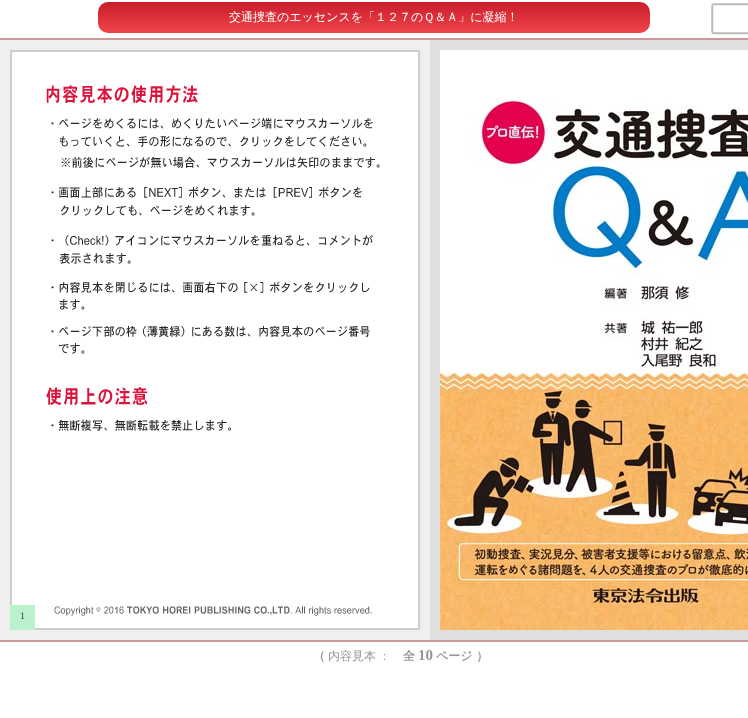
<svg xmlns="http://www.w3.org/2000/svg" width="748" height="718">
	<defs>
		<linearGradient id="g1" gradientUnits="userSpaceOnUse" x1="374" y1="2" x2="374" y2="33"><stop offset="0" stop-color="#C81E2B" /><stop offset="1" stop-color="#F04349" /></linearGradient>
	</defs>
	<rect width="100%" height="100%" fill="#FFFFFF" />
	<rect x="98" y="2" width="552" height="31" rx="10" fill="url(#g1)" />
	<text x="229" y="21" font-family="WenQuanYi Zen Hei" font-size="12" font-weight="500" fill="#FFFFFF">交通捜査のエッセンスを「１２７のＱ＆Ａ」に凝縮！</text>
	<rect x="0" y="38" width="748" height="2" fill="#CC9999" />
	<rect x="0" y="640" width="748" height="2" fill="#CC9999" />
	<image x="711" y="3" width="37" height="32" href="assets/img1.png" />
	<rect x="0" y="40" width="430" height="600" fill="#EFEFEF" />
	<image x="10" y="50" width="410" height="580" href="assets/img2.png" />
	<rect x="10" y="605" width="25" height="25" fill="#B9F2CC" />
	<text x="20" y="619" font-family="Liberation Serif" font-size="10" fill="#444444">1</text>
	<rect x="430" y="40" width="318" height="600" fill="#DFDFDF" />
	<image x="440" y="50" width="308" height="580" href="assets/img3.png" />
	<text x="313" y="660" font-family="WenQuanYi Zen Hei" font-size="12" font-weight="700" fill="#969696">（</text>
	<text x="328" y="660" word-spacing="-1" font-family="WenQuanYi Zen Hei" font-size="12" font-weight="500" fill="#969696">内容見本 ：</text>
	<text x="403" y="660" font-family="WenQuanYi Zen Hei" font-size="12" font-weight="700" fill="#969696">全</text>
	<text x="418" y="660" font-family="Liberation Serif" font-size="15" font-weight="700" fill="#969696">10</text>
	<text x="436" y="660" font-family="WenQuanYi Zen Hei" font-size="12" font-weight="700" fill="#969696">ページ ）</text>
</svg>
